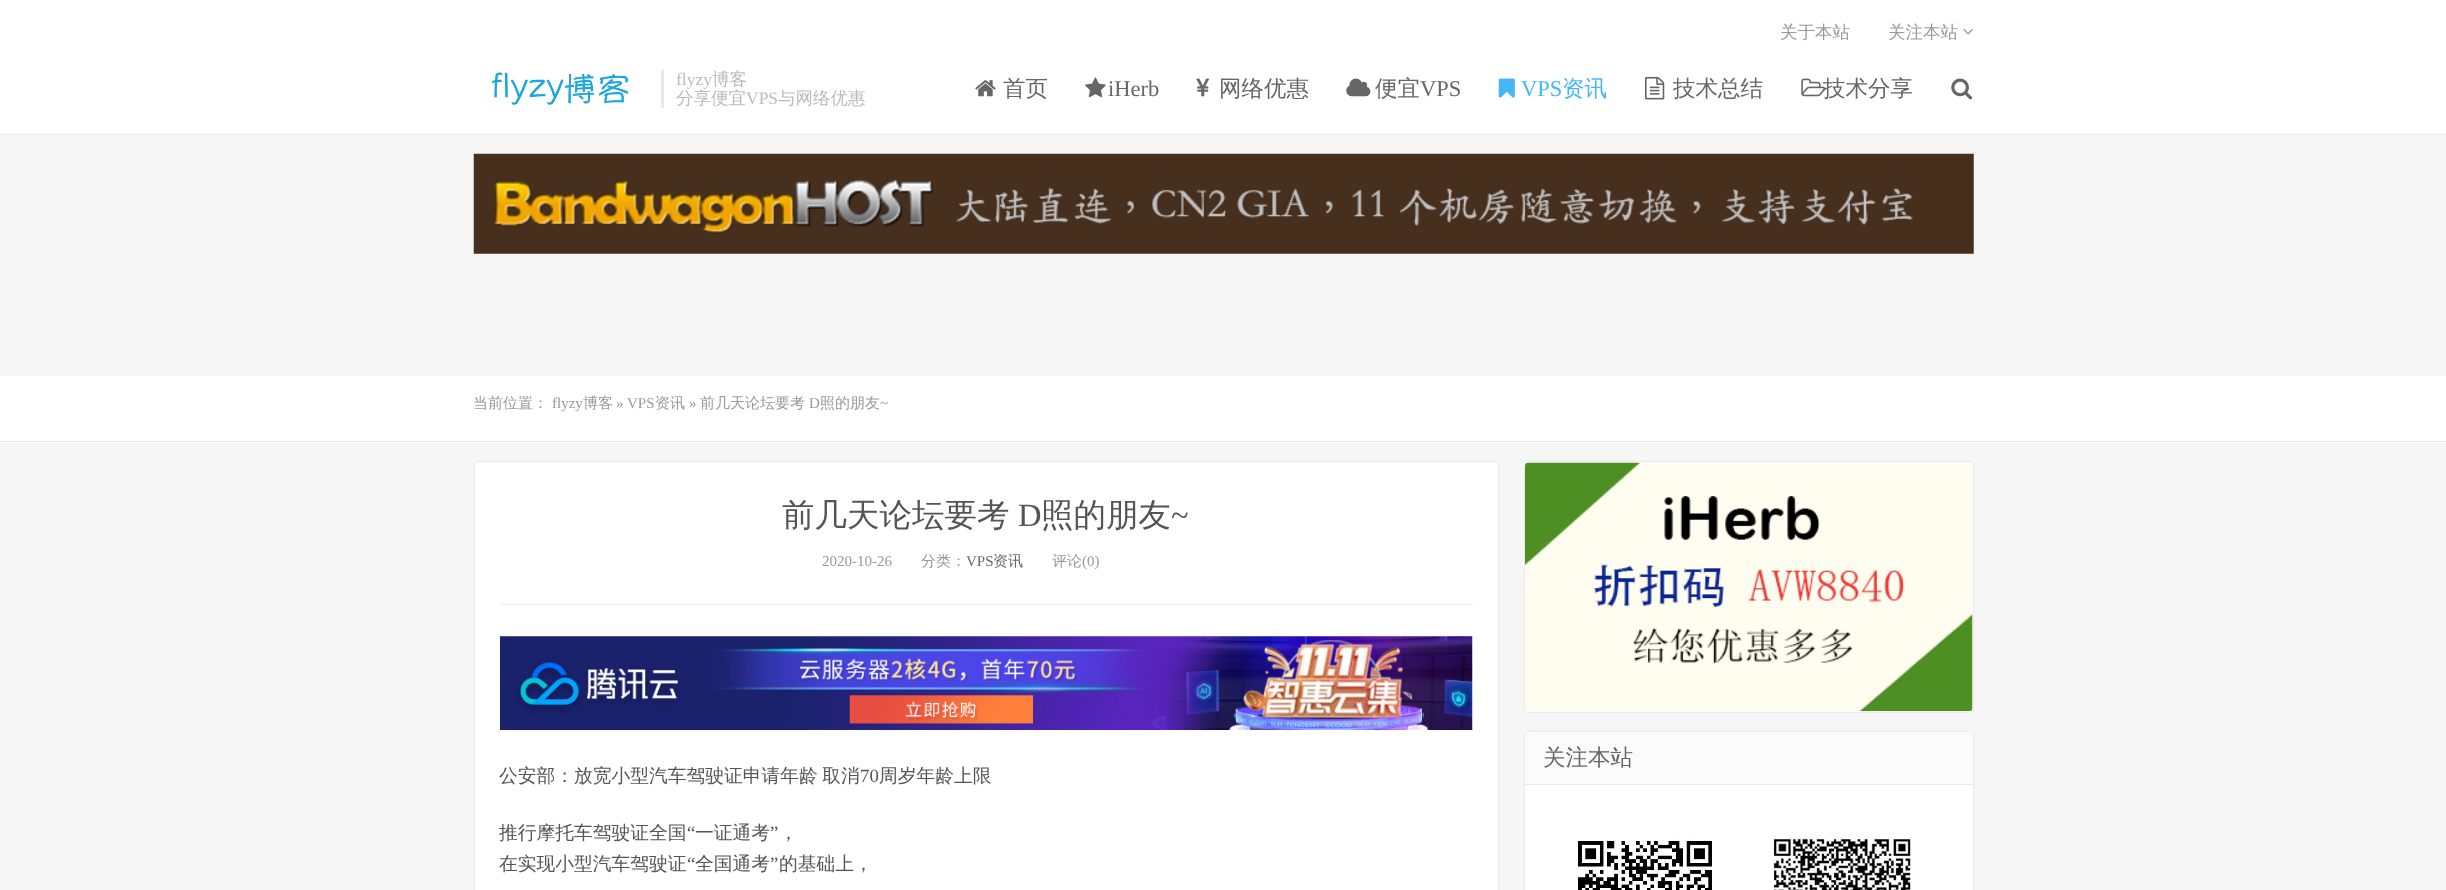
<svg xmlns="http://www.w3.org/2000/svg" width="2446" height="890">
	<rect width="100%" height="100%" fill="#F6F6F6" />
	<rect x="0" y="0" width="2446" height="134" fill="#FFFFFF" />
	<rect x="0" y="134" width="2446" height="1" fill="#EBEBEB" />
	<g font-family="WenQuanYi Zen Hei" font-size="17.5" font-weight="500" fill="#999999">
		<text x="1780" y="38">关于本站</text>
		<text x="1888" y="38">关注本站</text>
	</g>
	<image x="1963" y="29" width="10" height="6" href="assets/img1.png" />
	<image x="491" y="72" width="138" height="33" href="assets/img2.png" />
	<rect x="661" y="70" width="3" height="38" fill="#EAEAEA" />
	<text x="676" y="85" font-family="Liberation Serif" font-size="17.5" fill="#BBBBBB">flyzy</text>
	<g font-family="WenQuanYi Zen Hei" font-size="17.5" font-weight="500" fill="#BBBBBB">
		<text x="712" y="85">博客</text>
		<text x="676" y="104">分享便宜</text>
	</g>
	<text x="746" y="104" font-family="Liberation Serif" font-size="17.5" fill="#BBBBBB">VPS</text>
	<text x="778" y="104" font-family="WenQuanYi Zen Hei" font-size="17.5" font-weight="500" fill="#BBBBBB">与网络优惠</text>
	<image x="975" y="80" width="21" height="17" href="assets/img3.png" />
	<text x="1003" y="96" font-family="WenQuanYi Zen Hei" font-size="22.5" font-weight="500" fill="#666666">首页</text>
	<image x="1085" y="77" width="21" height="21" href="assets/img4.png" />
	<text x="1108" y="96" font-family="Liberation Serif" font-size="22.5" fill="#666666">iHerb</text>
	<image x="1196" y="78" width="13" height="19" href="assets/img5.png" />
	<text x="1219" y="96" font-family="WenQuanYi Zen Hei" font-size="22.5" font-weight="500" fill="#666666">网络优惠</text>
	<image x="1346" y="78" width="25" height="19" href="assets/img6.png" />
	<text x="1375" y="96" font-family="WenQuanYi Zen Hei" font-size="22.5" font-weight="500" fill="#666666">便宜</text>
	<text x="1420" y="96" font-family="Liberation Serif" font-size="22.5" fill="#666666">VPS</text>
	<image x="1498" y="78" width="17" height="20" href="assets/img7.png" />
	<text x="1521" y="96" font-family="Liberation Serif" font-size="22.5" fill="#45B6F7">VPS</text>
	<text x="1562" y="96" font-family="WenQuanYi Zen Hei" font-size="22.5" font-weight="500" fill="#45B6F7">资讯</text>
	<image x="1645" y="76" width="20" height="24" href="assets/img8.png" />
	<text x="1673" y="96" font-family="WenQuanYi Zen Hei" font-size="22.5" font-weight="500" fill="#666666">技术总结</text>
	<image x="1801" y="78" width="25" height="19" href="assets/img9.png" />
	<text x="1823" y="96" font-family="WenQuanYi Zen Hei" font-size="22.5" font-weight="500" fill="#666666">技术分享</text>
	<image x="1951" y="78" width="22" height="22" href="assets/img10.png" />
	<image x="473" y="153" width="1501" height="101" href="assets/img11.png" />
	<rect x="0" y="376" width="2446" height="67" fill="#FFFFFF" />
	<rect x="0" y="441" width="2446" height="1" fill="#EBEBEB" />
	<text x="473" y="408" font-family="WenQuanYi Zen Hei" font-size="15" font-weight="500" fill="#999999">当前位置：</text>
	<text x="552" y="408" font-family="Liberation Serif" font-size="15" fill="#999999">flyzy</text>
	<text x="583" y="408" font-family="WenQuanYi Zen Hei" font-size="15" font-weight="500" fill="#999999">博客</text>
	<text x="616" y="408" font-family="Liberation Serif" font-size="15" fill="#999999">» VPS</text>
	<text x="655" y="408" font-family="WenQuanYi Zen Hei" font-size="15" font-weight="500" fill="#999999">资讯</text>
	<text x="689" y="408" font-family="Liberation Serif" font-size="15" fill="#999999">»</text>
	<text x="700" y="408" font-family="WenQuanYi Zen Hei" font-size="15" font-weight="500" fill="#999999">前几天论坛要考</text>
	<text x="809" y="408" font-family="Liberation Serif" font-size="15" fill="#999999">D</text>
	<text x="820" y="408" font-family="WenQuanYi Zen Hei" font-size="15" font-weight="500" fill="#999999">照的朋友</text>
	<text x="880" y="408" font-family="Liberation Serif" font-size="15" fill="#999999">~</text>
	<rect x="474.5" y="461.5" width="1024" height="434" rx="4.5" fill="#FFFFFF" stroke="#EAEAEA" />
	<rect x="500" y="604" width="973" height="1" fill="#EEEEEE" />
	<text x="782" y="526" font-family="WenQuanYi Zen Hei" font-size="32.5" font-weight="500" fill="#555555">前几天论坛要考</text>
	<text x="1018" y="526" font-family="Liberation Serif" font-size="32.5" fill="#555555">D</text>
	<text x="1041" y="526" font-family="WenQuanYi Zen Hei" font-size="32.5" font-weight="500" fill="#555555">照的朋友</text>
	<text x="1171" y="526" font-family="Liberation Serif" font-size="32.5" fill="#555555">~</text>
	<text x="822" y="566" font-family="Liberation Serif" font-size="15" fill="#999999">2020-10-26</text>
	<text x="921" y="566" font-family="WenQuanYi Zen Hei" font-size="15" font-weight="500" fill="#999999">分类：</text>
	<text x="966" y="566" font-family="Liberation Serif" font-size="15" fill="#666666">VPS</text>
	<text x="993" y="566" font-family="WenQuanYi Zen Hei" font-size="15" font-weight="500" fill="#666666">资讯</text>
	<text x="1052" y="566" font-family="WenQuanYi Zen Hei" font-size="15" font-weight="500" fill="#999999">评论</text>
	<text x="1082" y="566" font-family="Liberation Serif" font-size="15" fill="#999999">(0)</text>
	<image x="500" y="636" width="973" height="94" href="assets/img12.png" />
	<text x="499" y="782" word-spacing="-1" font-family="WenQuanYi Zen Hei" font-size="18.75" font-weight="500" fill="#555555">公安部：放宽小型汽车驾驶证申请年龄 取消</text>
	<text x="860" y="782" font-family="Liberation Serif" font-size="18.75" fill="#555555">70</text>
	<g font-family="WenQuanYi Zen Hei" font-size="18.75" font-weight="500" fill="#555555">
		<text x="879" y="782">周岁年龄上限</text>
		<text x="499" y="839">推行摩托车驾驶证全国</text>
	</g>
	<text x="687" y="839" font-family="Liberation Serif" font-size="18.75" fill="#555555">“</text>
	<text x="695" y="839" font-family="WenQuanYi Zen Hei" font-size="18.75" font-weight="500" fill="#555555">一证通考</text>
	<text x="770" y="839" font-family="Liberation Serif" font-size="18.75" fill="#555555">”</text>
	<g font-family="WenQuanYi Zen Hei" font-size="18.75" font-weight="500" fill="#555555">
		<text x="779" y="839">，</text>
		<text x="499" y="870">在实现小型汽车驾驶证</text>
	</g>
	<text x="687" y="870" font-family="Liberation Serif" font-size="18.75" fill="#555555">“</text>
	<text x="695" y="870" font-family="WenQuanYi Zen Hei" font-size="18.75" font-weight="500" fill="#555555">全国通考</text>
	<text x="770" y="870" font-family="Liberation Serif" font-size="18.75" fill="#555555">”</text>
	<text x="779" y="870" font-family="WenQuanYi Zen Hei" font-size="18.75" font-weight="500" fill="#555555">的基础上，</text>
	<rect x="1524.5" y="461.5" width="449" height="251" rx="4.5" fill="#FFFFFF" stroke="#EAEAEA" />
	<image x="1525" y="462" width="448" height="250" href="assets/img13.png" />
	<rect x="1524.5" y="731.5" width="449" height="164" rx="4.5" fill="#FFFFFF" stroke="#EAEAEA" />
	<path d="M1529 733H1969C1971 733 1973 735 1973 737V785H1525V737C1525 735 1527 733 1529 733Z" fill="#FBFBFB" />
	<rect x="1525" y="784" width="448" height="1" fill="#EAEAEA" />
	<text x="1543" y="765" font-family="WenQuanYi Zen Hei" font-size="22.5" font-weight="500" fill="#666666">关注本站</text>
	<image x="1577" y="839" width="334" height="51" href="assets/img14.png" />
</svg>
